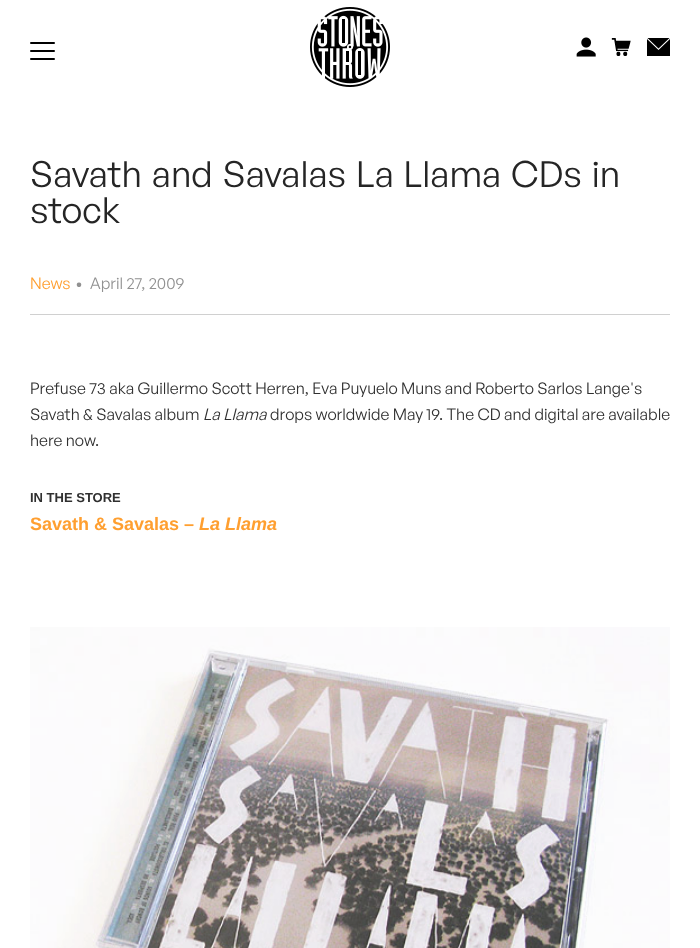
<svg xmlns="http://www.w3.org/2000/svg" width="700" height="948">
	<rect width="100%" height="100%" fill="#FFFFFF" />
	<rect x="30" y="42" width="25" height="2" rx="1" fill="#000000" />
	<rect x="30" y="50" width="25" height="2" rx="1" fill="#000000" />
	<rect x="30" y="58" width="25" height="2" rx="1" fill="#000000" />
	<image x="310" y="7" width="80" height="80" href="assets/img1.png" />
	<image x="576" y="37" width="20" height="20" href="assets/img2.png" />
	<image x="611" y="38" width="20" height="18" href="assets/img3.png" />
	<path d="M647 39V56H670V39L658.5 50ZM669.5 38H647.5L658.5 48.5Z" fill="#000000" fill-rule="evenodd" />
	<g font-family="General Sans" font-size="36" fill="#252525">
		<text x="30" y="187" word-spacing="2.25">Savath and Savalas La Llama CDs in</text>
		<text x="30" y="223">stock</text>
	</g>
	<rect x="30" y="314" width="640" height="1" fill="#D0D0D0" />
	<text x="30" y="289" font-family="General Sans" font-size="16" fill="#FF9F30">News</text>
	<text x="75" y="289" font-family="General Sans" font-size="16" fill="#919191" xml:space="preserve">•  April 27, 2009</text>
	<g font-family="General Sans" font-size="16" fill="#303030">
		<text x="30" y="394">Prefuse 73 aka Guillermo Scott Herren, Eva Puyuelo Muns and Roberto Sarlos Lange's</text>
		<text x="30" y="420">Savath &amp; Savalas album</text>
	</g>
	<text x="203" y="420" font-family="General Sans" font-size="16" font-style="italic" fill="#303030">La Llama</text>
	<g font-family="General Sans" font-size="16" fill="#303030">
		<text x="270" y="420">drops worldwide May 19. The CD and digital are available</text>
		<text x="30" y="446">here now.</text>
	</g>
	<text x="30" y="502" font-family="Liberation Sans" font-size="13" font-weight="700" fill="#303030">IN THE STORE</text>
	<text x="30" y="530" font-family="Liberation Sans" font-size="18" font-weight="700" fill="#FF9F30">Savath &amp; Savalas –</text>
	<text x="199" y="530" font-family="Liberation Sans" font-size="18" font-weight="700" font-style="italic" fill="#FF9F30">La Llama</text>
	<image x="30" y="627" width="640" height="321" href="assets/img4.png" />
</svg>
